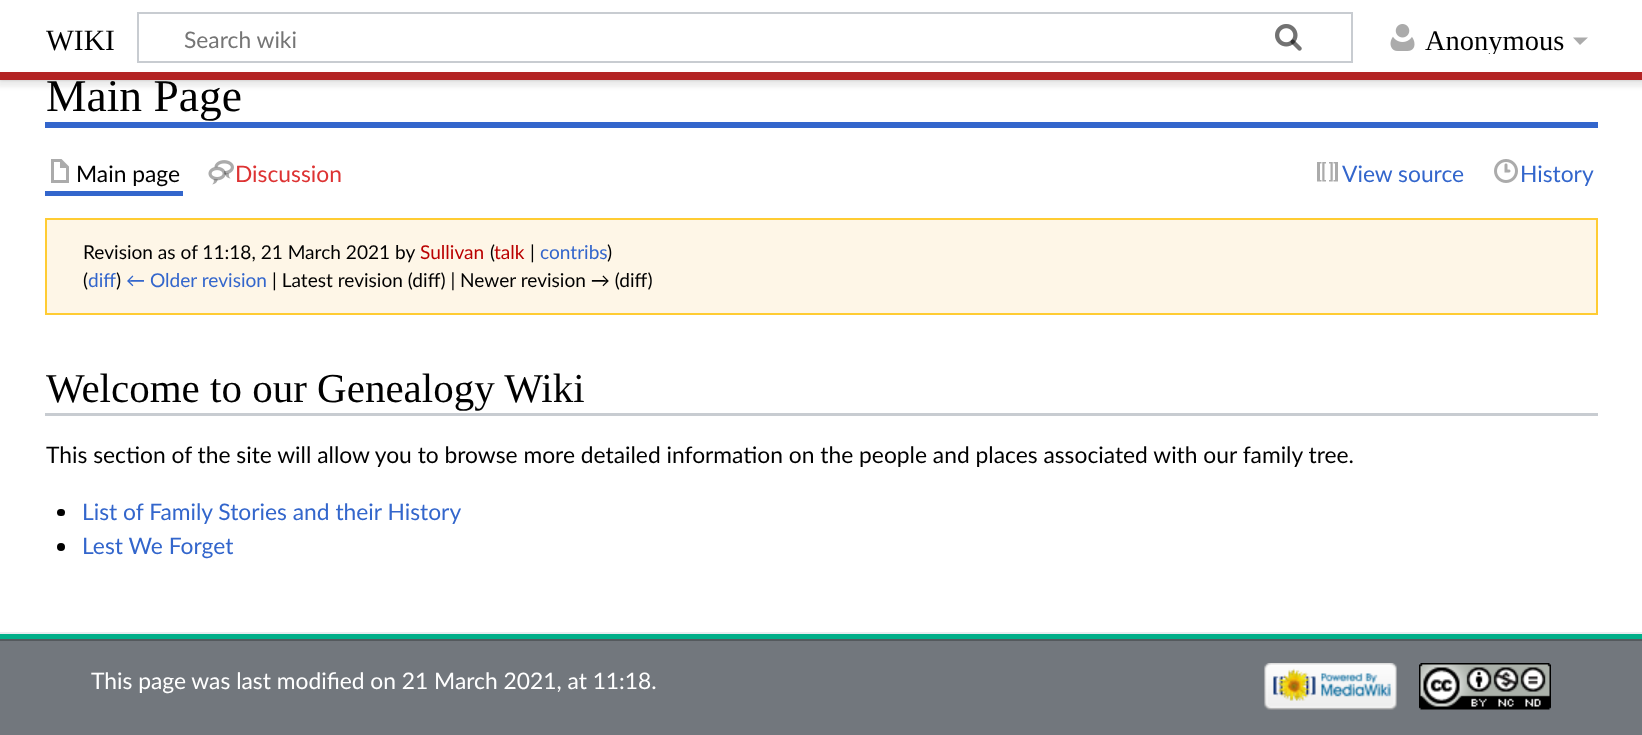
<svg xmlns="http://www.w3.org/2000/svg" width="1642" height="735">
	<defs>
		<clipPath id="clip1"><rect x="1425" y="26" width="140" height="28" /></clipPath>
	</defs>
	<rect width="100%" height="100%" fill="#72777D" />
	<rect x="0" y="80" width="1642" height="552" fill="#FFFFFF" />
	<rect x="0" y="72" width="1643" height="8" fill="#000000" fill-opacity="0.2" filter="blur(1.5px)" />
	<rect x="-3" y="74" width="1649" height="13" fill="#000000" fill-opacity="0.07" filter="blur(2px)" />
	<rect x="0" y="0" width="1642" height="72" fill="#FFFFFF" />
	<text x="46" y="50" font-family="Liberation Serif" font-size="29.5" fill="#000000">WIKI</text>
	<rect x="138" y="13" width="1214" height="49" fill="none" stroke="#C8CCD1" stroke-width="2" />
	<image x="1275" y="24" width="27" height="27" href="assets/img1.png" />
	<text x="184" y="48" font-family="Lato" font-size="22.8" fill="#757575">Search wiki</text>
	<image x="1275" y="24" width="27" height="27" href="assets/img2.png" />
	<image x="1390" y="24" width="25" height="27" href="assets/img3.png" />
	<g clip-path="url(#clip1)">
		<text x="1425" y="50" font-family="Liberation Serif" font-size="28.5" fill="#000000">Anonymous</text>
	</g>
	<path d="M1588 37.5L1580 45L1573 37.5Z" fill="#ABABAB" />
	<rect x="0" y="72" width="1642" height="8" fill="#B32424" />
	<rect x="0" y="634" width="1642" height="5" fill="#00AF89" />
	<rect x="0" y="632" width="1642" height="2" fill="#EAECF0" />
	<rect x="45" y="122" width="1553" height="6" fill="#3366CC" />
	<text x="46" y="111" font-family="Liberation Serif" font-size="45.5" fill="#000000">Main Page</text>
	<rect x="45" y="191" width="138" height="5" fill="#3366CC" />
	<image x="51" y="159" width="18" height="24" href="assets/img4.png" />
	<text x="76" y="182" font-family="Lato" font-size="22.8" fill="#000000">Main page</text>
	<image x="208" y="160" width="26" height="25" href="assets/img5.png" />
	<text x="235" y="182" font-family="Lato" font-size="22.8" fill="#DD3333">Discussion</text>
	<image x="1317" y="162" width="21" height="20" href="assets/img6.png" />
	<text x="1342" y="182" font-family="Lato" font-size="22.8" fill="#3366CC">View source</text>
	<image x="1494" y="159" width="24" height="24" href="assets/img7.png" />
	<text x="1520" y="182" font-family="Lato" font-size="22.8" fill="#3366CC">History</text>
	<rect x="46" y="219" width="1551" height="95" fill="#FEF6E7" stroke="#FFCC33" stroke-width="2" />
	<text x="83" y="259" font-family="Lato" font-size="19.1" fill="#000000">Revision as of 11:18, 21 March 2021 by</text>
	<text x="420" y="259" font-family="Lato" font-size="19.1" fill="#BA0000">Sullivan</text>
	<text x="490" y="259" font-family="Lato" font-size="19.1" fill="#000000">(</text>
	<text x="494" y="259" font-family="Lato" font-size="19.1" fill="#BA0000">talk</text>
	<text x="530" y="259" font-family="Lato" font-size="19.1" fill="#000000">|</text>
	<text x="540" y="259" font-family="Lato" font-size="19.1" fill="#3366CC">contribs</text>
	<g font-family="Lato" font-size="19.1" fill="#000000">
		<text x="607" y="259">)</text>
		<text x="83" y="287">(</text>
	</g>
	<text x="88" y="287" font-family="Lato" font-size="19.1" fill="#3366CC">diff</text>
	<text x="116" y="287" font-family="Lato" font-size="19.1" fill="#000000">)</text>
	<text x="126" y="287" font-family="Lato" font-size="19.1" fill="#3366CC">← Older revision</text>
	<text x="272" y="287" font-family="Lato" font-size="19.1" fill="#000000">| Latest revision (diff) | Newer revision → (diff)</text>
	<text x="46" y="402" font-family="Liberation Serif" font-size="41" fill="#000000">Welcome to our Genealogy Wiki</text>
	<rect x="45" y="413" width="1553" height="3" fill="#C8CCD1" />
	<text x="46" y="463" font-family="Lato" font-size="22.8" fill="#000000">This section of the site will allow you to browse more detailed information on the people and places associated with our family tree.</text>
	<rect x="57" y="509" width="8" height="7" rx="3.5" fill="#000000" />
	<text x="82" y="520" font-family="Lato" font-size="22.8" fill="#3366CC">List of Family Stories and their History</text>
	<circle cx="61" cy="547" r="4" fill="#000000" />
	<text x="82" y="554" font-family="Lato" font-size="22.8" fill="#3366CC">Lest We Forget</text>
	<rect x="0" y="639" width="1642" height="2" fill="#54595D" />
	<text x="91" y="689" font-family="Lato" font-size="22.8" fill="#FFFFFF">This page was last modified on 21 March 2021, at 11:18.</text>
	<image x="1264" y="663" width="133" height="47" href="assets/img8.png" />
	<image x="1419" y="663" width="132" height="47" href="assets/img9.png" />
</svg>
